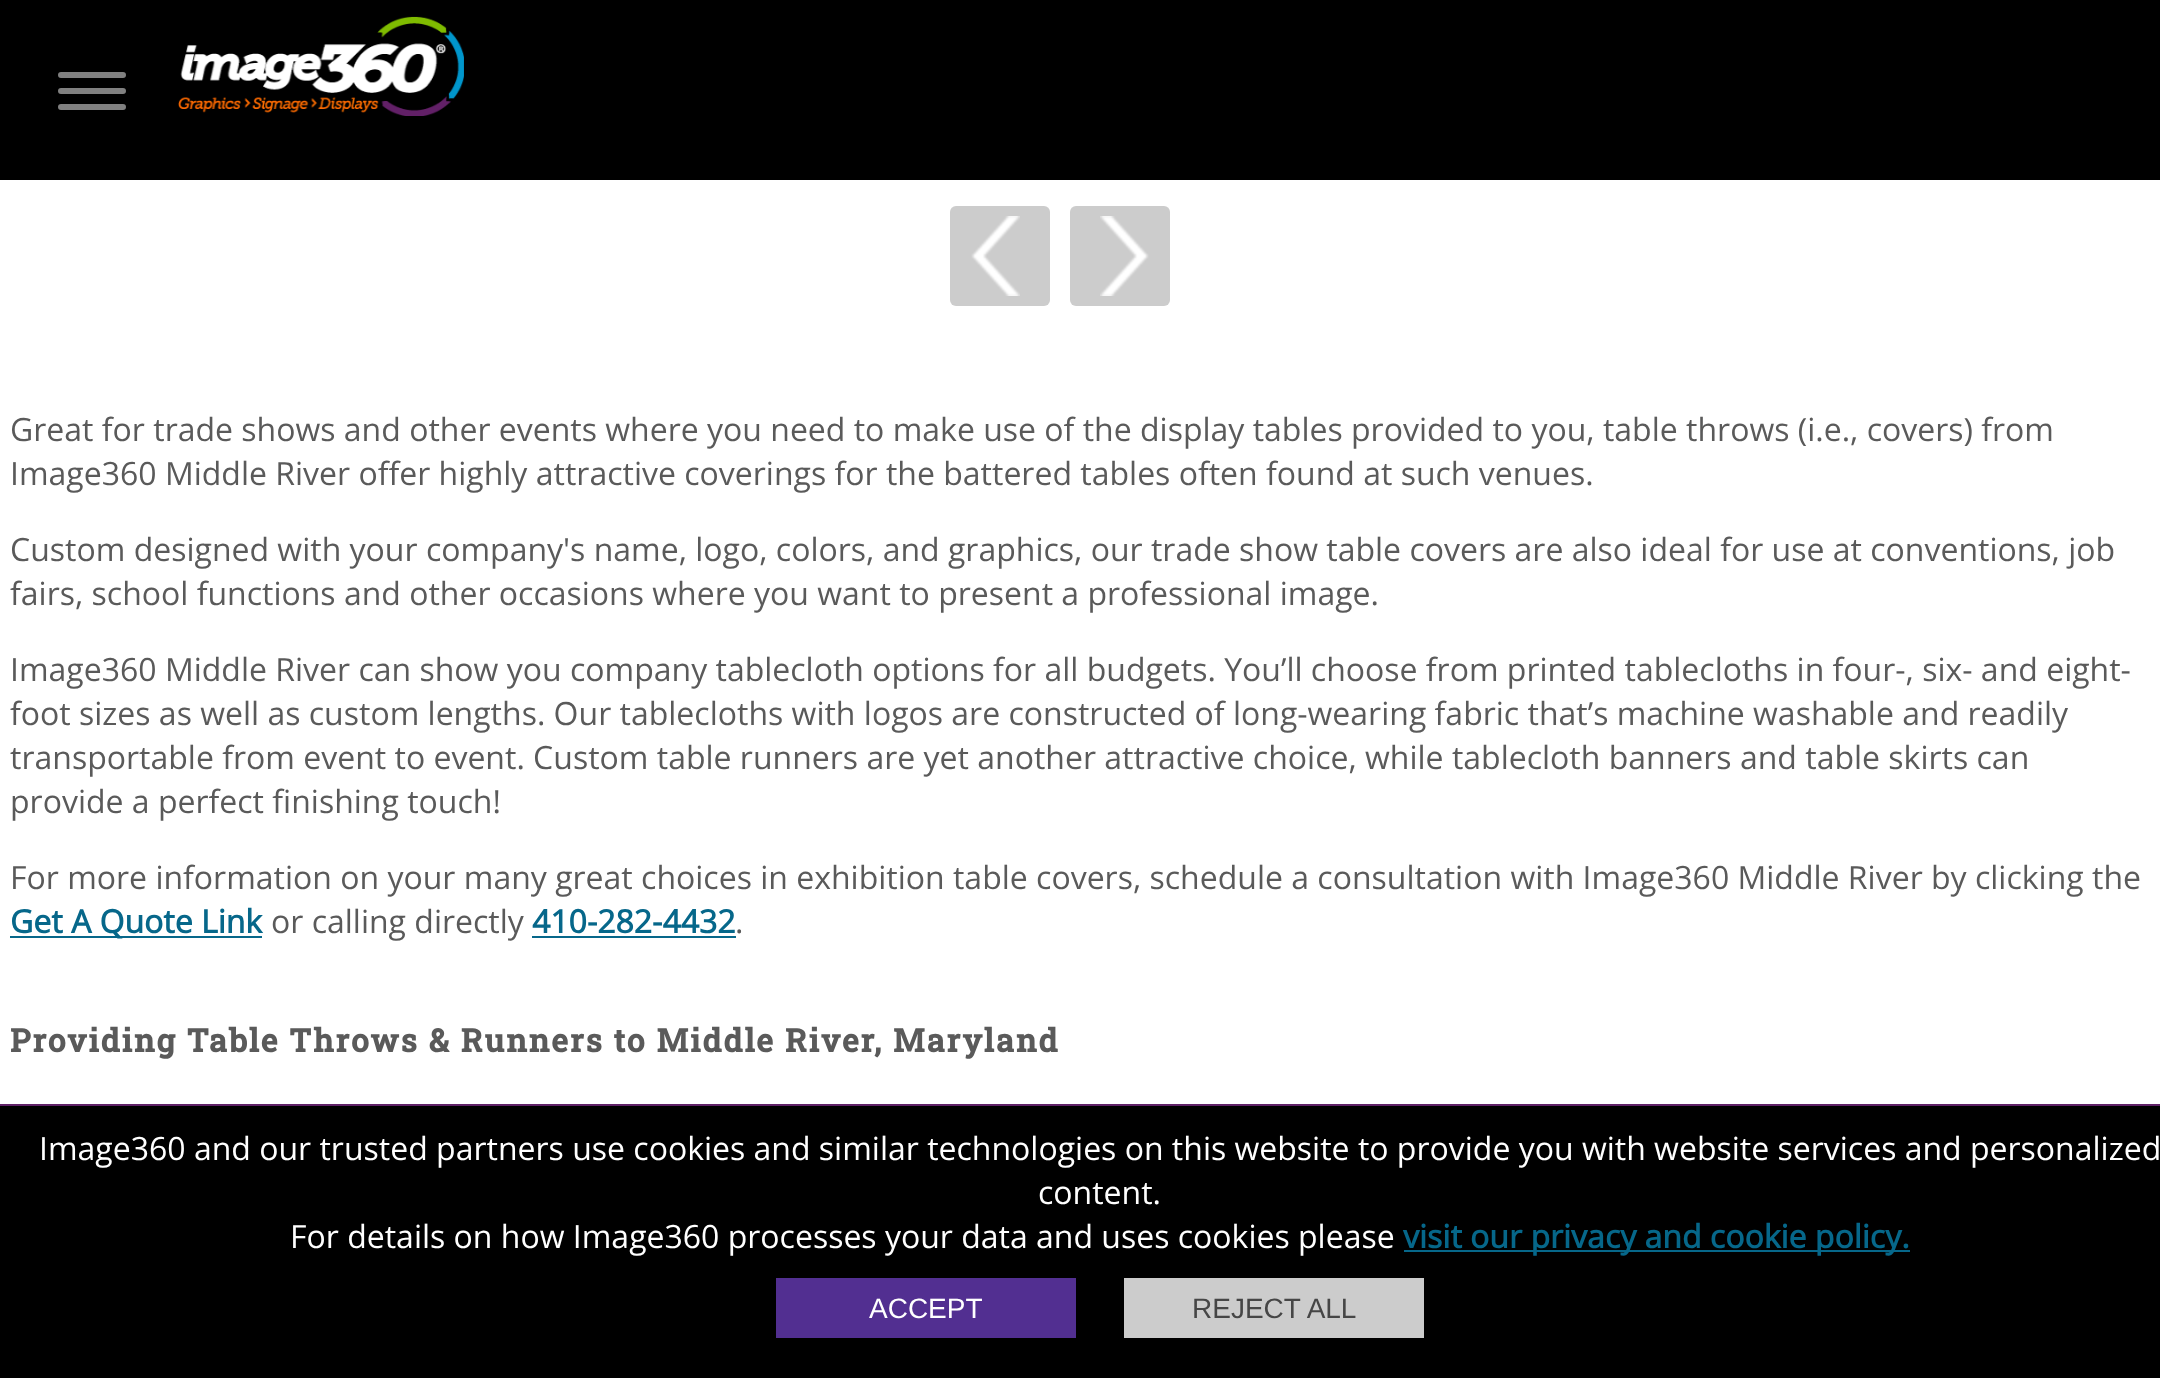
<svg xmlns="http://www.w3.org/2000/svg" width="2160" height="1378">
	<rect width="100%" height="100%" fill="#FFFFFF" />
	<rect x="0" y="0" width="2160" height="180" fill="#000000" />
	<rect x="59" y="73" width="66" height="4" rx="2" fill="#808080" stroke="#808080" stroke-width="2" />
	<rect x="59" y="89" width="66" height="4" rx="2" fill="#808080" stroke="#808080" stroke-width="2" />
	<rect x="59" y="105" width="66" height="4" rx="2" fill="#808080" stroke="#808080" stroke-width="2" />
	<image x="178" y="16" width="286" height="100" href="assets/img1.png" />
	<rect x="950" y="206" width="100" height="100" rx="6" fill="#CCCCCC" />
	<image x="971" y="216" width="49" height="80" href="assets/img2.png" />
	<rect x="1070" y="206" width="100" height="100" rx="6" fill="#CCCCCC" />
	<image x="1100" y="216" width="49" height="80" href="assets/img3.png" />
	<g font-family="Open Sans" font-size="32" fill="#5A5A5A">
		<text x="10" y="441">Great for trade shows and other events where you need to make use of the display tables provided to you, table throws (i.e., covers) from</text>
		<text x="10" y="485">Image360 Middle River offer highly attractive coverings for the battered tables often found at such venues.</text>
		<text x="10" y="561">Custom designed with your company's name, logo, colors, and graphics, our trade show table covers are also ideal for use at conventions, job</text>
		<text x="10" y="605">fairs, school functions and other occasions where you want to present a professional image.</text>
		<text x="10" y="681">Image360 Middle River can show you company tablecloth options for all budgets. You’ll choose from printed tablecloths in four-, six- and eight-</text>
		<text x="10" y="725">foot sizes as well as custom lengths. Our tablecloths with logos are constructed of long-wearing fabric that’s machine washable and readily</text>
		<text x="10" y="769">transportable from event to event. Custom table runners are yet another attractive choice, while tablecloth banners and table skirts can</text>
		<text x="10" y="813">provide a perfect finishing touch!</text>
		<text x="10" y="889">For more information on your many great choices in exhibition table covers, schedule a consultation with Image360 Middle River by clicking the</text>
	</g>
	<rect x="10" y="936" width="252" height="2" fill="#06678A" />
	<text x="10" y="933" font-family="Open Sans" font-size="32" font-weight="700" fill="#06678A">Get A Quote Link</text>
	<text x="271" y="933" font-family="Open Sans" font-size="32" fill="#5A5A5A">or calling directly</text>
	<text x="532" y="933" font-family="Open Sans" font-size="32" font-weight="700" fill="#06678A">410-282-4432</text>
	<rect x="532" y="936" width="204" height="2" fill="#06678A" />
	<text x="735" y="933" font-family="Open Sans" font-size="32" fill="#5A5A5A">.</text>
	<text x="10" y="1052" font-family="Roboto Slab" font-size="32" font-weight="700" letter-spacing="2" fill="#5A5A5A">Providing Table Throws &amp; Runners to Middle River, Maryland</text>
	<rect x="0" y="1104" width="2160" height="2" fill="#5F2167" />
	<rect x="0" y="1106" width="2160" height="272" fill="#000000" />
	<g font-family="Open Sans" font-size="32" fill="#FFFFFF">
		<text x="39" y="1160">Image360 and our trusted partners use cookies and similar technologies on this website to provide you with website services and personalized</text>
		<text x="1038" y="1204">content.</text>
		<text x="290" y="1248">For details on how Image360 processes your data and uses cookies please</text>
	</g>
	<rect x="1404" y="1250" width="506" height="2" fill="#06678A" />
	<text x="1403" y="1248" font-family="Open Sans" font-size="32" font-weight="700" fill="#06678A">visit our privacy and cookie policy.</text>
	<rect x="776" y="1278" width="300" height="60" fill="#522F91" />
	<text x="869" y="1318" font-family="Liberation Sans" font-size="28" fill="#FFFFFF">ACCEPT</text>
	<rect x="1124" y="1278" width="300" height="60" fill="#CCCCCC" />
	<text x="1192" y="1318" font-family="Liberation Sans" font-size="28" fill="#464646">REJECT ALL</text>
</svg>
